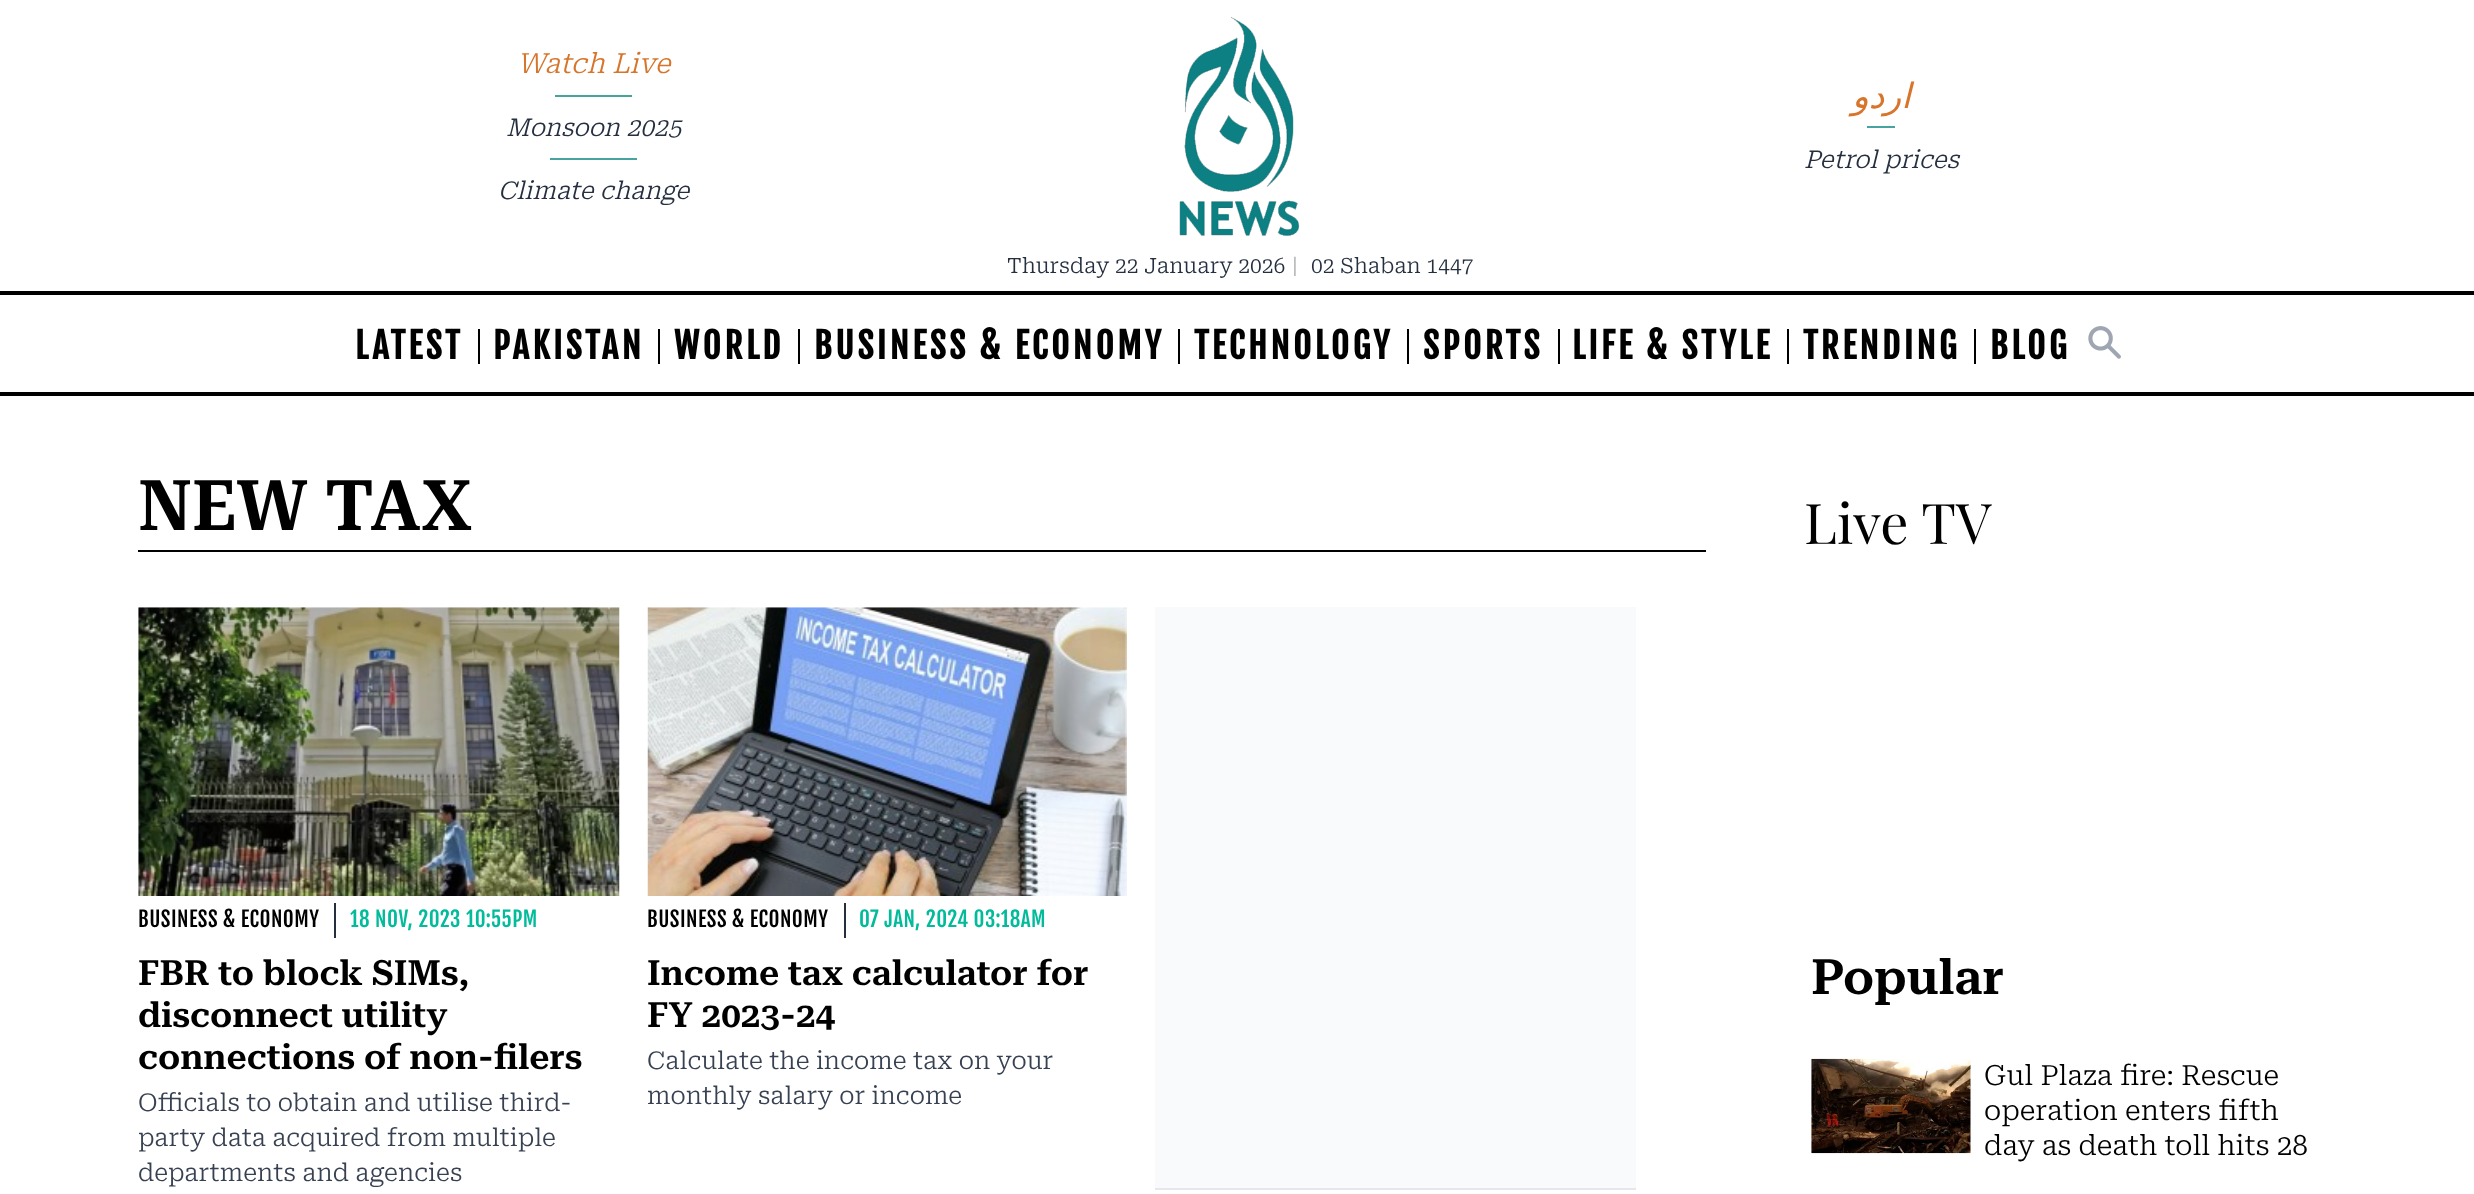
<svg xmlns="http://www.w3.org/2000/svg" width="2474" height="1194">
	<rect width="100%" height="100%" fill="#FFFFFF" />
	<text x="517" y="73" font-family="Roboto Serif" font-size="28" font-weight="300" font-style="italic" fill="#D7752B">Watch Live</text>
	<rect x="555" y="95" width="77" height="2" fill="#47A39E" />
	<text x="506" y="136" font-family="'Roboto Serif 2'" font-size="24.5" font-weight="300" font-style="italic" fill="#252F3F">Monsoon 2025</text>
	<rect x="550" y="158" width="87" height="2" fill="#47A39E" />
	<text x="498" y="199" font-family="'Roboto Serif 2'" font-size="24.5" font-weight="300" font-style="italic" fill="#252F3F">Climate change</text>
	<text x="1911" y="108" font-family="DejaVu Sans" font-size="35" font-style="italic" direction="rtl" fill="#D7752B">اردو</text>
	<rect x="1867" y="126" width="28" height="2" fill="#47A39E" />
	<text x="1804" y="168" font-family="'Roboto Serif 2'" font-size="24.5" font-weight="300" font-style="italic" fill="#252F3F">Petrol prices</text>
	<image x="1179" y="17" width="121" height="219" href="assets/img1.png" />
	<text x="1007" y="273" font-family="Roboto Serif" font-size="21" font-weight="300" fill="#252F3F">Thursday 22 January 2026</text>
	<text x="1292" y="273" font-family="Roboto Serif" font-size="21" font-weight="300" fill="#AAAAAA">|</text>
	<text x="1311" y="273" font-family="Roboto Serif" font-size="21" font-weight="300" fill="#252F3F">02 Shaban 1447</text>
	<rect x="0" y="291" width="2474" height="4" fill="#000000" />
	<rect x="0" y="392" width="2474" height="4" fill="#000000" />
	<rect x="478" y="329" width="2" height="35" fill="#000000" />
	<text x="355" y="359" font-family="Fjalla One" font-size="35" font-weight="700" letter-spacing="3.5" fill="#000000">LATEST</text>
	<rect x="658" y="329" width="2" height="35" fill="#000000" />
	<text x="493" y="359" font-family="Fjalla One" font-size="35" font-weight="700" letter-spacing="3.5" fill="#000000">PAKISTAN</text>
	<rect x="798" y="329" width="2" height="35" fill="#000000" />
	<text x="674" y="359" font-family="Fjalla One" font-size="35" font-weight="700" letter-spacing="3.5" fill="#000000">WORLD</text>
	<rect x="1178" y="329" width="2" height="35" fill="#000000" />
	<text x="814" y="359" font-family="Fjalla One" font-size="35" font-weight="700" letter-spacing="3.5" fill="#000000">BUSINESS &amp; ECONOMY</text>
	<rect x="1407" y="329" width="2" height="35" fill="#000000" />
	<text x="1194" y="359" font-family="Fjalla One" font-size="35" font-weight="700" letter-spacing="3.5" fill="#000000">TECHNOLOGY</text>
	<rect x="1558" y="329" width="2" height="35" fill="#000000" />
	<text x="1423" y="359" font-family="Fjalla One" font-size="35" font-weight="700" letter-spacing="3.5" fill="#000000">SPORTS</text>
	<rect x="1787" y="329" width="2" height="35" fill="#000000" />
	<text x="1572" y="359" font-family="Fjalla One" font-size="35" font-weight="700" letter-spacing="3.5" fill="#000000">LIFE &amp; STYLE</text>
	<rect x="1974" y="329" width="2" height="35" fill="#000000" />
	<g font-family="Fjalla One" font-size="35" font-weight="700" letter-spacing="3.5" fill="#000000">
		<text x="1803" y="359">TRENDING</text>
		<text x="1990" y="359">BLOG</text>
	</g>
	<image x="2088" y="326" width="33" height="33" href="assets/img2.png" />
	<rect x="138" y="550" width="1568" height="2" fill="#000000" />
	<text x="138" y="530" font-family="Roboto Serif" font-size="70" font-weight="600" fill="#000000">NEW TAX</text>
	<image x="138" y="607" width="482" height="289" href="assets/img3.png" />
	<rect x="334" y="903" width="2" height="35" fill="#252F3F" />
	<text x="138" y="927" font-family="Fjalla One" font-size="21" letter-spacing="0.5" fill="#000000">BUSINESS &amp; ECONOMY</text>
	<text x="350" y="927" font-family="Fjalla One" font-size="21" letter-spacing="0.5" fill="#02BB9B">18 NOV, 2023 10:55PM</text>
	<g font-family="'Roboto Serif 2'" font-size="35" font-weight="600" fill="#000000">
		<text x="138" y="985">FBR to block SIMs,</text>
		<text x="138" y="1027">disconnect utility</text>
		<text x="138" y="1069">connections of non-filers</text>
	</g>
	<g font-family="'Roboto Serif 2'" font-size="24.5" font-weight="300" fill="#374151">
		<text x="138" y="1111">Officials to obtain and utilise third-</text>
		<text x="138" y="1146">party data acquired from multiple</text>
		<text x="138" y="1181">departments and agencies</text>
	</g>
	<image x="647" y="607" width="480" height="289" href="assets/img4.png" />
	<rect x="844" y="903" width="2" height="35" fill="#252F3F" />
	<text x="647" y="927" font-family="Fjalla One" font-size="21" letter-spacing="0.5" fill="#000000">BUSINESS &amp; ECONOMY</text>
	<text x="859" y="927" font-family="Fjalla One" font-size="21" letter-spacing="0.5" fill="#02BB9B">07 JAN, 2024 03:18AM</text>
	<g font-family="'Roboto Serif 2'" font-size="35" font-weight="600" fill="#000000">
		<text x="647" y="985">Income tax calculator for</text>
		<text x="647" y="1027">FY 2023-24</text>
	</g>
	<g font-family="'Roboto Serif 2'" font-size="24.5" font-weight="300" fill="#374151">
		<text x="647" y="1069">Calculate the income tax on your</text>
		<text x="647" y="1104">monthly salary or income</text>
	</g>
	<rect x="1155" y="607" width="481" height="581" fill="#F9FAFB" />
	<rect x="1155" y="1188" width="481" height="2" fill="#E5E7EB" />
	<text x="1804" y="544" font-family="Playfair Display" font-size="56" fill="#000000">Live TV</text>
	<text x="1811" y="994" font-family="'Roboto Serif 2'" font-size="49" font-weight="600" fill="#000000">Popular</text>
	<image x="1811" y="1058" width="160" height="96" href="assets/img5.png" />
	<g font-family="'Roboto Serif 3'" font-size="28" font-weight="300" fill="#000000">
		<text x="1984" y="1085">Gul Plaza fire: Rescue</text>
		<text x="1984" y="1120">operation enters fifth</text>
		<text x="1984" y="1155">day as death toll hits 28</text>
	</g>
</svg>
